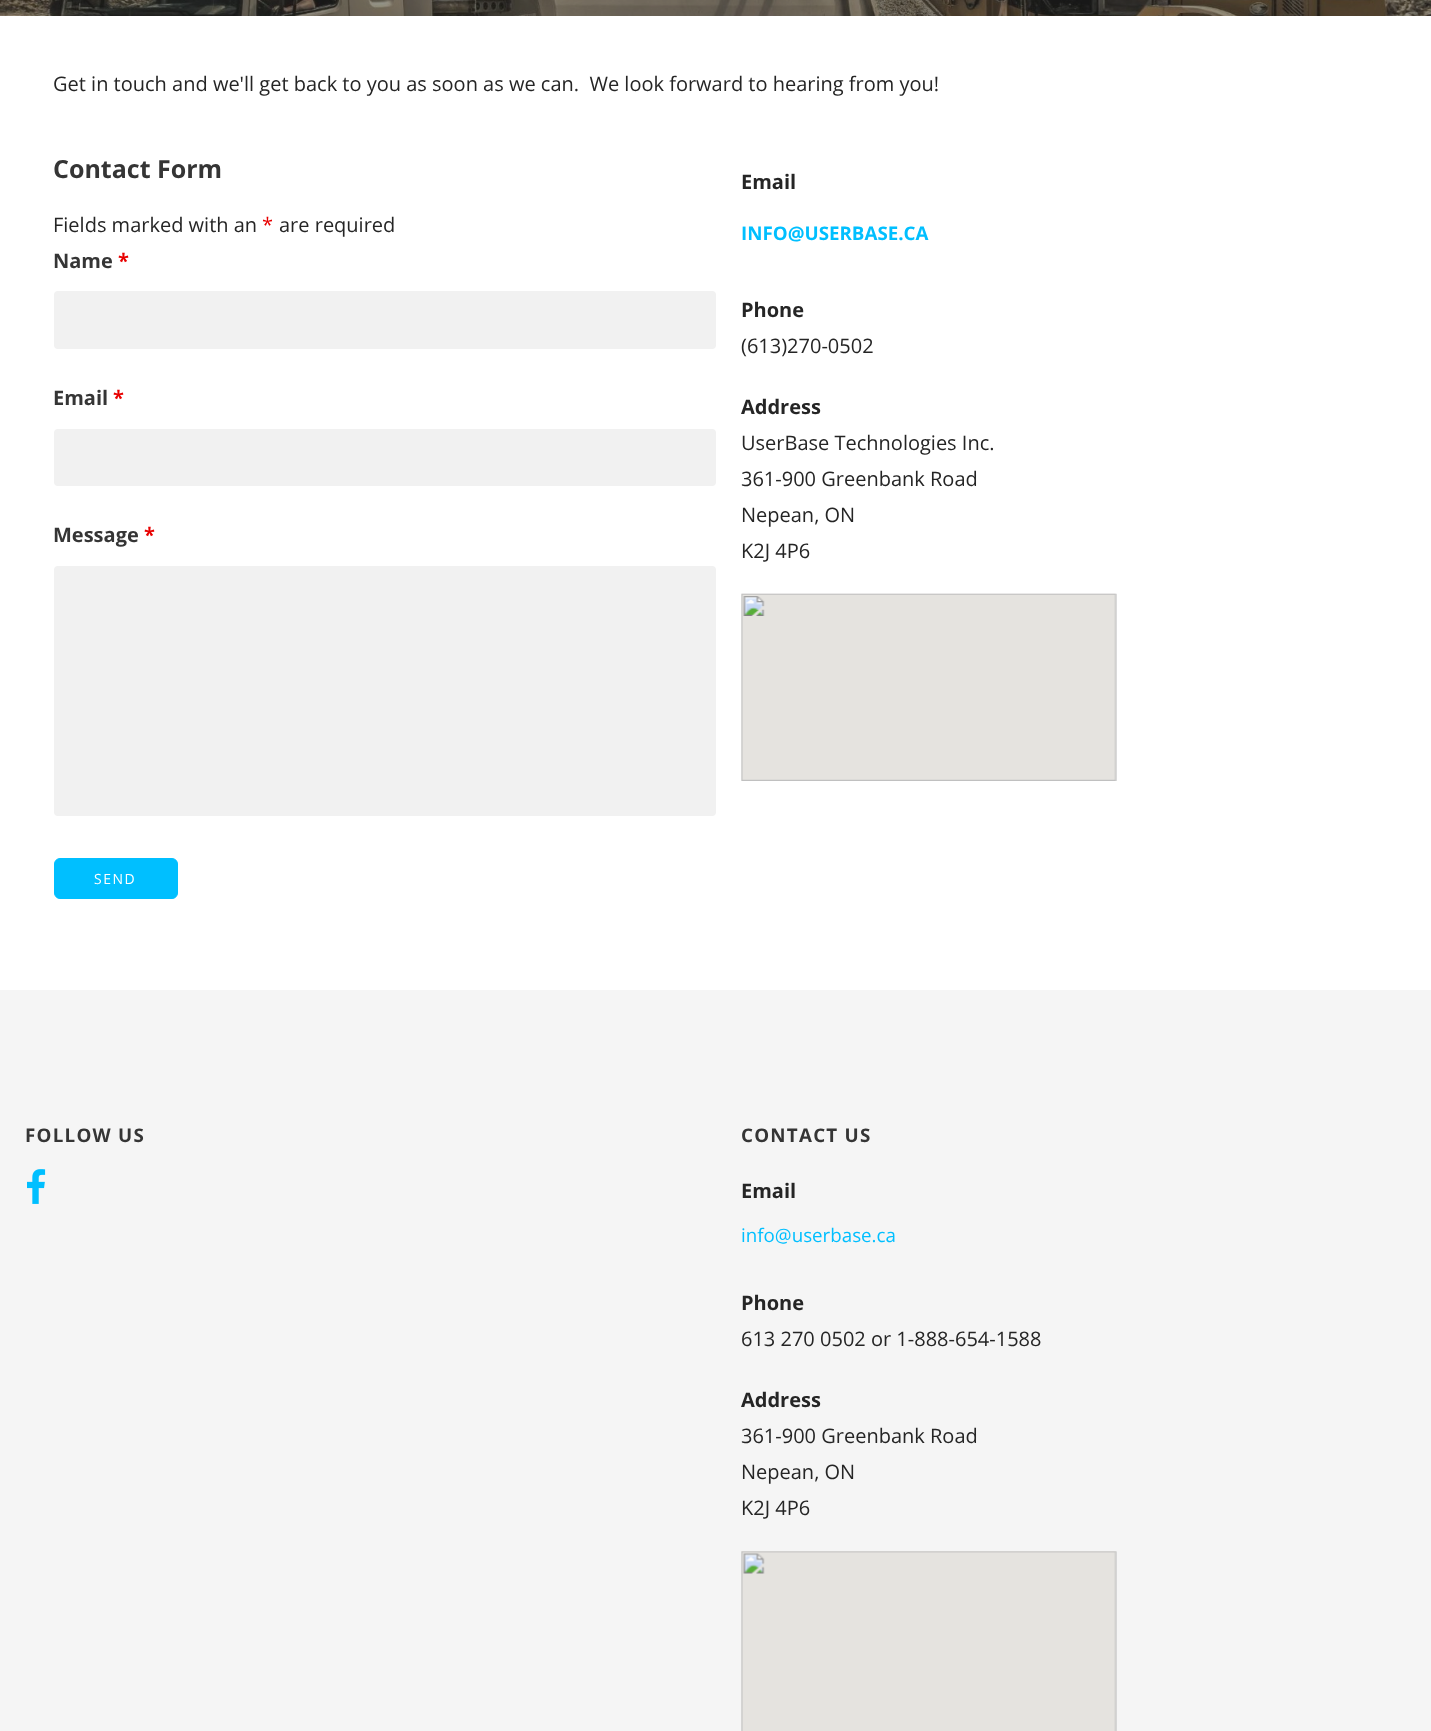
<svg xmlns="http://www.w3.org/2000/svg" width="1431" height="1731">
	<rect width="100%" height="100%" fill="#FFFFFF" />
	<image x="0" y="0" width="1431" height="16" href="assets/img1.png" />
	<text x="53" y="91" font-family="Open Sans" font-size="20" fill="#252525" xml:space="preserve">Get in touch and we'll get back to you as soon as we can.  We look forward to hearing from you!</text>
	<text x="53" y="178" font-family="Open Sans" font-size="25" font-weight="700" fill="#353535">Contact Form</text>
	<text x="53" y="232" font-family="Open Sans" font-size="20" fill="#252525">Fields marked with an</text>
	<text x="262" y="232" font-family="Open Sans" font-size="20" fill="#E80000">*</text>
	<text x="279" y="232" font-family="Open Sans" font-size="20" fill="#252525">are required</text>
	<text x="53" y="268" font-family="Open Sans" font-size="20" font-weight="700" fill="#353535">Name</text>
	<text x="118" y="268" font-family="Open Sans" font-size="20" font-weight="700" fill="#E80000">*</text>
	<rect x="54" y="291" width="662" height="58" rx="4" fill="#F1F1F1" />
	<text x="53" y="405" font-family="Open Sans" font-size="20" font-weight="700" fill="#353535">Email</text>
	<text x="113" y="405" font-family="Open Sans" font-size="20" font-weight="700" fill="#E80000">*</text>
	<rect x="54" y="429" width="662" height="57" rx="4" fill="#F1F1F1" />
	<text x="53" y="542" font-family="Open Sans" font-size="20" font-weight="700" fill="#353535">Message</text>
	<text x="144" y="542" font-family="Open Sans" font-size="20" font-weight="700" fill="#E80000">*</text>
	<rect x="54" y="566" width="662" height="250" rx="4" fill="#F1F1F1" />
	<rect x="54.5" y="858.5" width="123" height="40" rx="5.5" fill="#00BFFF" stroke="#00BFFF" />
	<text x="94" y="884" font-family="Open Sans" font-size="14" letter-spacing="1.5" fill="#FFFFFF">SEND</text>
	<text x="741" y="189" font-family="Open Sans" font-size="20" font-weight="700" fill="#252525">Email</text>
	<text x="741" y="240" font-family="Open Sans" font-size="18.75" font-weight="700" fill="#00BFFF">INFO@USERBASE.CA</text>
	<text x="741" y="317" font-family="Open Sans" font-size="20" font-weight="700" fill="#252525">Phone</text>
	<text x="741" y="353" font-family="Open Sans" font-size="20" fill="#252525">(613)270-0502</text>
	<text x="741" y="414" font-family="Open Sans" font-size="20" font-weight="700" fill="#252525">Address</text>
	<g font-family="Open Sans" font-size="20" fill="#252525">
		<text x="741" y="450">UserBase Technologies Inc.</text>
		<text x="741" y="486">361-900 Greenbank Road</text>
		<text x="741" y="522">Nepean, ON</text>
		<text x="741" y="558">K2J 4P6</text>
	</g>
	<image x="741" y="593" width="376" height="188" href="assets/img2.png" />
	<rect x="0" y="990" width="1431" height="741" fill="#F5F5F5" />
	<text x="25" y="1142" font-family="Open Sans" font-size="18.75" font-weight="700" letter-spacing="1.25" fill="#353535">FOLLOW US</text>
	<image x="27" y="1169" width="19" height="35" href="assets/img3.png" />
	<text x="741" y="1142" font-family="Open Sans" font-size="18.75" font-weight="700" letter-spacing="1.25" fill="#353535">CONTACT US</text>
	<text x="741" y="1198" font-family="Open Sans" font-size="20" font-weight="700" fill="#252525">Email</text>
	<text x="741" y="1242" font-family="Open Sans" font-size="18.75" fill="#00BFFF">info@userbase.ca</text>
	<text x="741" y="1310" font-family="Open Sans" font-size="20" font-weight="700" fill="#252525">Phone</text>
	<text x="741" y="1346" font-family="Open Sans" font-size="20" fill="#252525">613 270 0502 or 1-888-654-1588</text>
	<text x="741" y="1407" font-family="Open Sans" font-size="20" font-weight="700" fill="#252525">Address</text>
	<g font-family="Open Sans" font-size="20" fill="#252525">
		<text x="741" y="1443">361-900 Greenbank Road</text>
		<text x="741" y="1479">Nepean, ON</text>
		<text x="741" y="1515">K2J 4P6</text>
	</g>
	<image x="741" y="1551" width="376" height="180" href="assets/img4.png" />
</svg>
